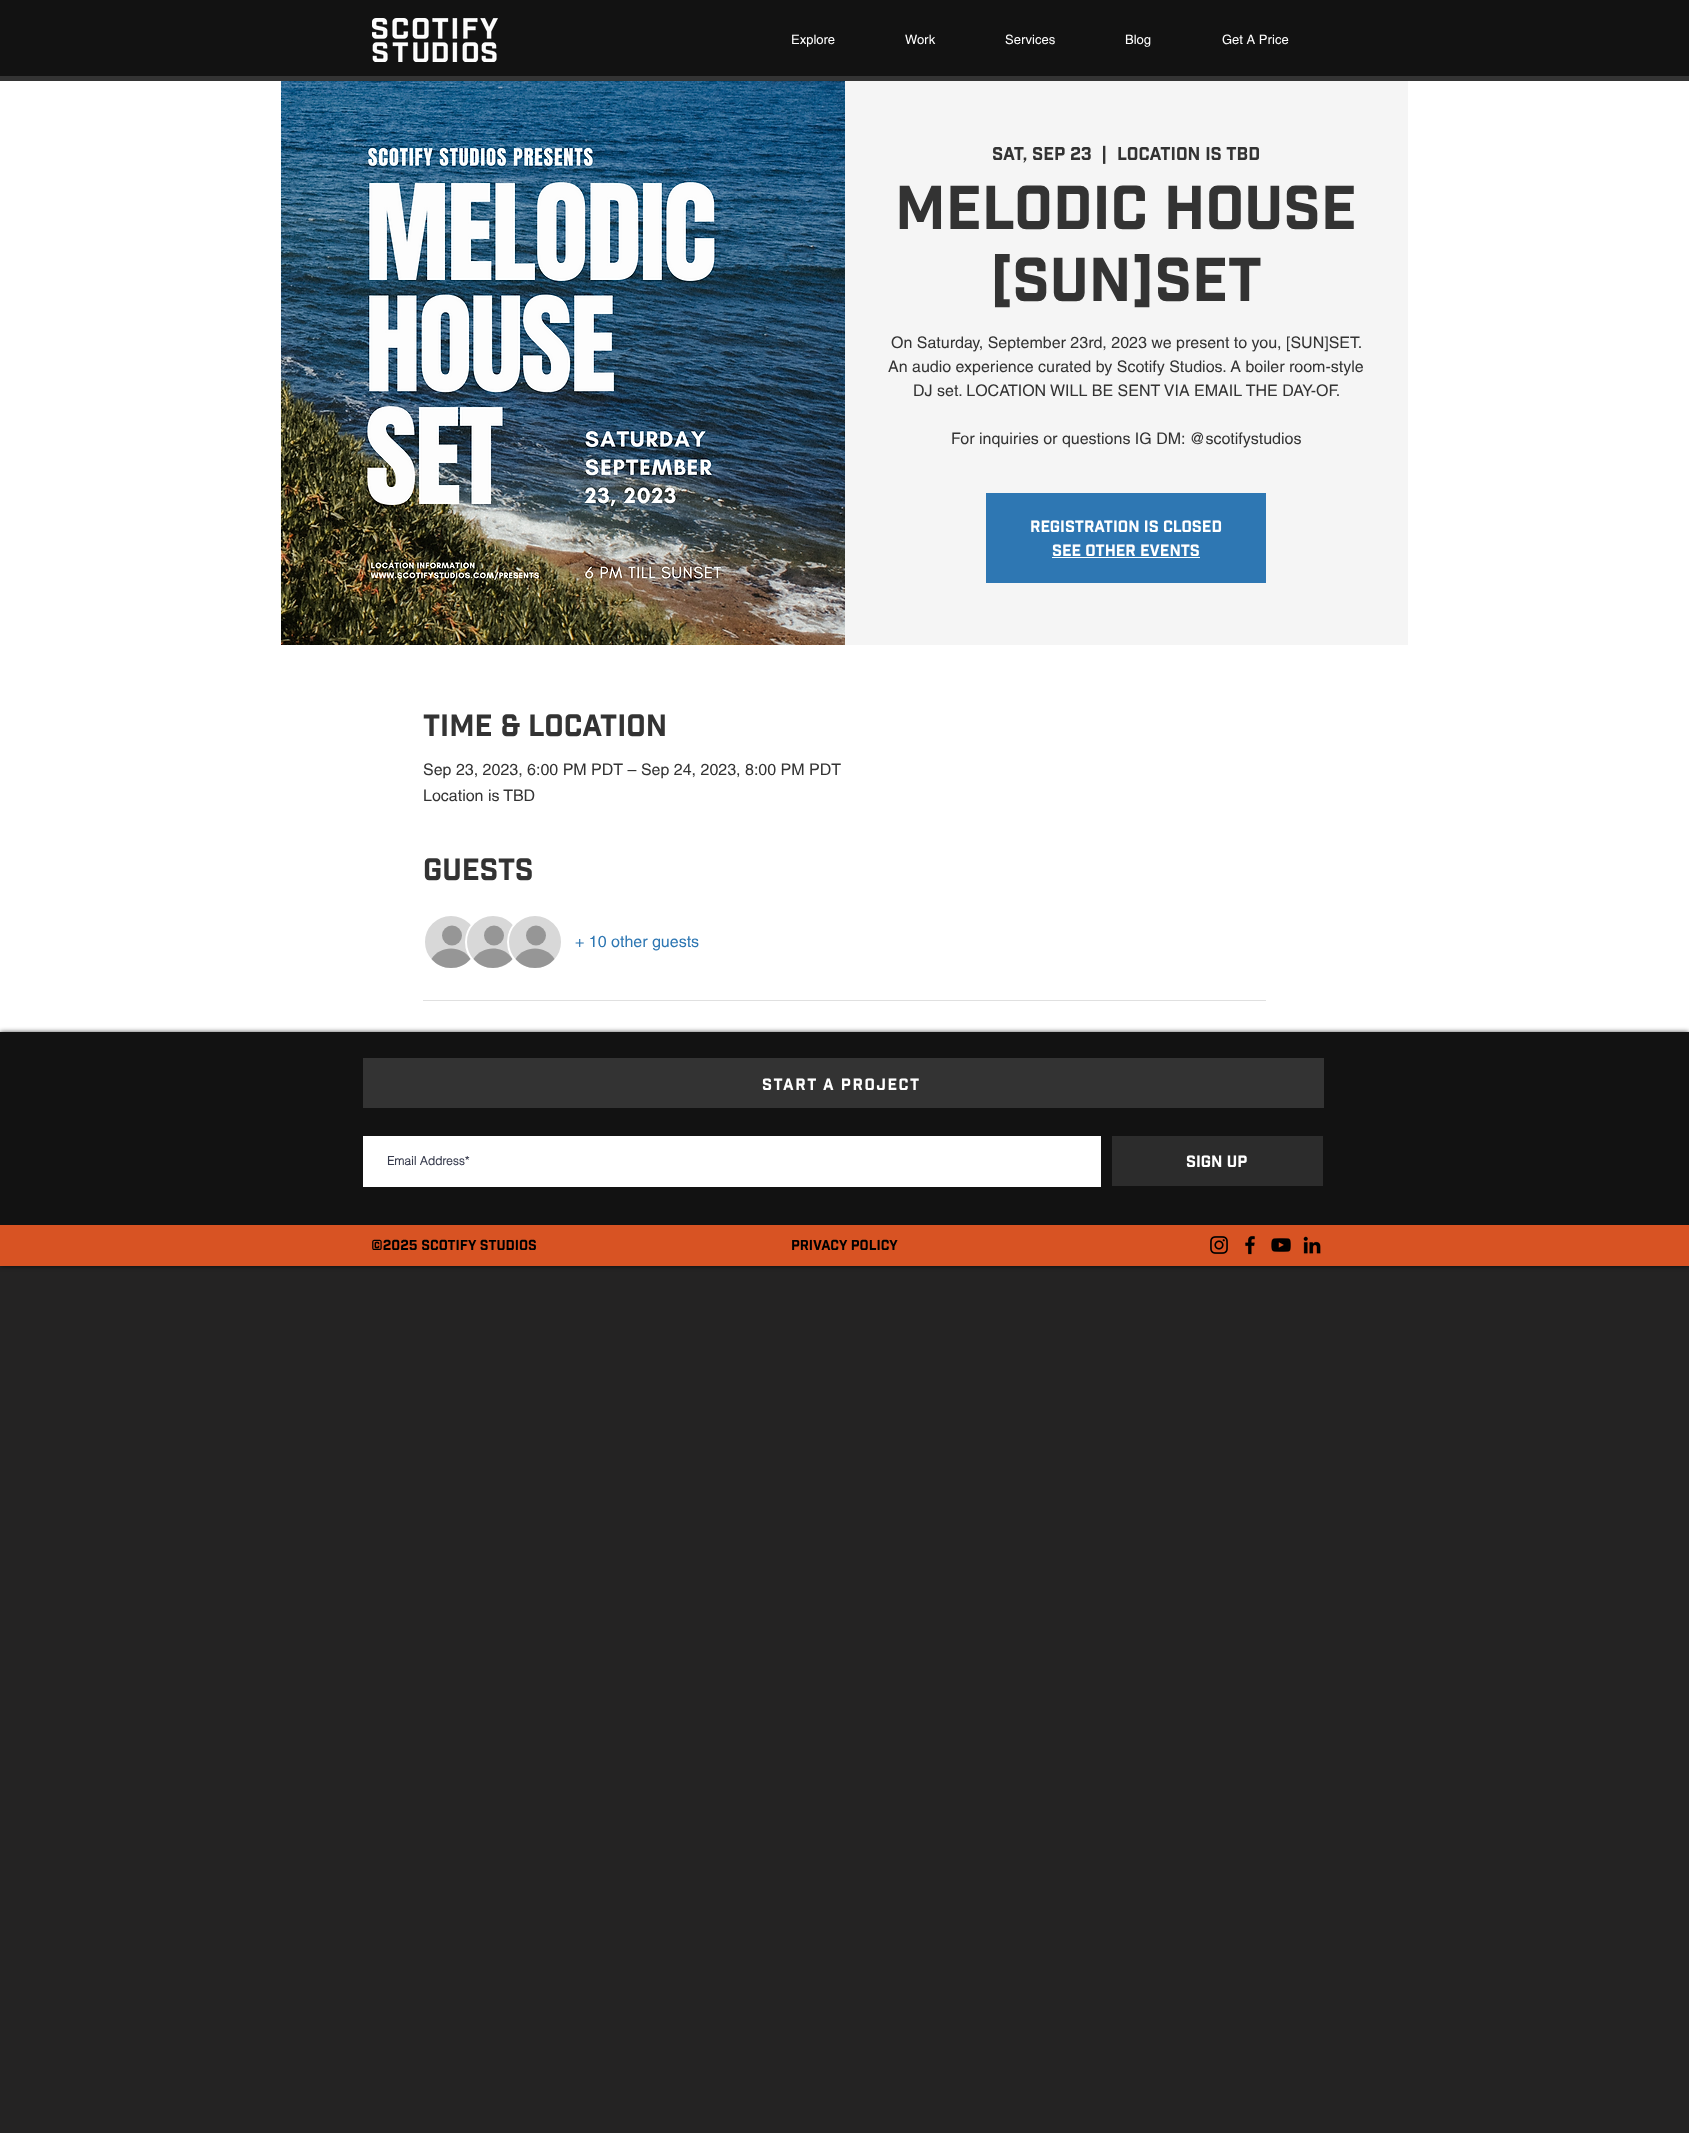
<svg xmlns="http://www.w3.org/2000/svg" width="1689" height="2133">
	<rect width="100%" height="100%" fill="#242323" />
	<rect x="0" y="76" width="1689" height="5" fill="#333333" />
	<rect x="0" y="0" width="1689" height="76" fill="#121212" />
	<image x="372" y="18" width="126" height="44" href="assets/img1.png" />
	<g font-family="helvetica" font-size="13" fill="#FFFFFF">
		<text x="791" y="44">Explore</text>
		<text x="905" y="44">Work</text>
		<text x="1005" y="44">Services</text>
		<text x="1125" y="44">Blog</text>
		<text x="1222" y="44">Get A Price</text>
	</g>
	<rect x="0" y="81" width="1689" height="951" fill="#FFFFFF" />
	<image x="281" y="81" width="564" height="564" href="assets/img2.png" />
	<rect x="845" y="81" width="563" height="564" fill="#F5F5F5" />
	<g font-family="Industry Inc" font-size="18" fill="#333333">
		<text x="992" y="160">Sat, Sep 23</text>
		<text x="1101" y="160">|</text>
		<text x="1117" y="160">Location is TBD</text>
	</g>
	<g font-family="Industry Inc" font-size="60" fill="#333333">
		<text x="895" y="229">MELODIC HOUSE</text>
		<text x="990" y="301">[SUN]SET</text>
	</g>
	<g font-family="helvetica" font-size="16" fill="#333333">
		<text x="891" y="348">On Saturday, September 23rd, 2023 we present to you, [SUN]SET.</text>
		<text x="888" y="372">An audio experience curated by Scotify Studios. A boiler room-style</text>
		<text x="913" y="396">DJ set. LOCATION WILL BE SENT VIA EMAIL THE DAY-OF.</text>
		<text x="951" y="444">For inquiries or questions IG DM: @scotifystudios</text>
	</g>
	<rect x="986" y="493" width="280" height="90" fill="#2E77B3" />
	<g font-family="Industry Inc" font-size="16" fill="#FFFFFF">
		<text x="1030" y="532">Registration is closed</text>
		<text x="1052" y="556">See other events</text>
	</g>
	<rect x="1052" y="557" width="148" height="1" fill="#FFFFFF" />
	<text x="423" y="736" font-family="Industry Inc" font-size="30" fill="#333333">Time &amp; Location</text>
	<g font-family="helvetica" font-size="16" fill="#333333">
		<text x="423" y="775">Sep 23, 2023, 6:00 PM PDT – Sep 24, 2023, 8:00 PM PDT</text>
		<text x="423" y="801">Location is TBD</text>
	</g>
	<text x="423" y="880" font-family="Industry Inc" font-size="30" fill="#333333">Guests</text>
	<circle cx="451" cy="942" r="27" fill="#D8D8D8" stroke="#FFFFFF" stroke-width="2" />
	<circle cx="452" cy="935.5" r="10" fill="#969696" />
	<path d="M470.5 959C460.5 971 441.5 971 431.5 959C440 945 462 945 470.5 959Z" fill="#969696" />
	<circle cx="493" cy="942" r="27" fill="#D8D8D8" stroke="#FFFFFF" stroke-width="2" />
	<circle cx="494" cy="935.5" r="10" fill="#969696" />
	<path d="M512.5 959C502.5 971 483.5 971 473.5 959C482 945 504 945 512.5 959Z" fill="#969696" />
	<circle cx="535" cy="942" r="27" fill="#D8D8D8" stroke="#FFFFFF" stroke-width="2" />
	<circle cx="536" cy="935.5" r="10" fill="#969696" />
	<path d="M554.5 959C544.5 971 525.5 971 515.5 959C524 945 546 945 554.5 959Z" fill="#969696" />
	<text x="575" y="947" font-family="helvetica" font-size="16" fill="#2E77B3">+ 10 other guests</text>
	<rect x="423" y="1000" width="843" height="1" fill="#E0E0E0" />
	<rect x="0" y="1032" width="1689" height="234" fill="#000000" fill-opacity="0.7" filter="blur(2.5px)" />
	<rect x="0" y="1032" width="1689" height="193" fill="#121212" />
	<rect x="363" y="1058" width="961" height="50" fill="#333333" />
	<text x="762" y="1090" font-family="Industry Inc" font-size="16" letter-spacing="1.6" fill="#FFFFFF">START A PROJECT</text>
	<rect x="363" y="1136" width="738" height="51" fill="#FFFFFF" />
	<text x="387" y="1165" font-family="helvetica" font-size="12" font-weight="700" fill="#373B4D">Email Address*</text>
	<rect x="1112" y="1136" width="211" height="50" fill="#2C2C2C" />
	<text x="1186" y="1167" font-family="Industry Inc" font-size="16" fill="#FFFFFF">SIGN UP</text>
	<rect x="0" y="1225" width="1689" height="41" fill="#D85323" />
	<g font-family="Industry Inc" font-size="14" fill="#000000">
		<text x="371" y="1250">©2025 SCOTIFY STUDIOS</text>
		<text x="791" y="1250">PRIVACY POLICY</text>
	</g>
	<image x="1210" y="1236" width="18" height="18" href="assets/img3.png" />
	<image x="1245" y="1235" width="10" height="20" href="assets/img4.png" />
	<image x="1271" y="1238" width="20" height="14" href="assets/img5.png" />
	<image x="1303" y="1236" width="18" height="18" href="assets/img6.png" />
</svg>
